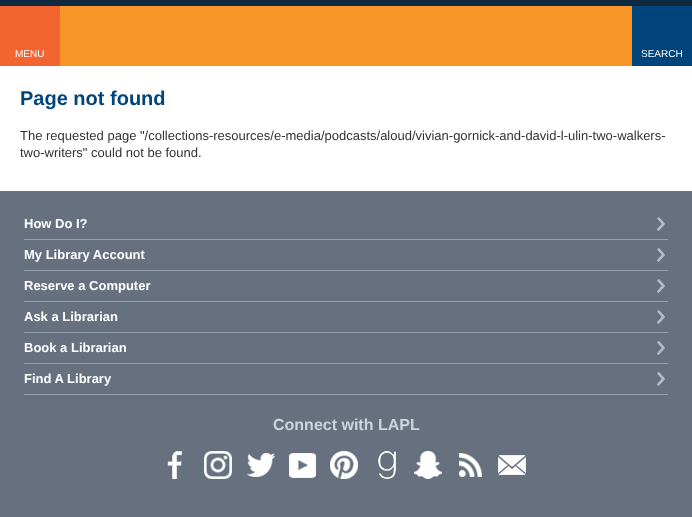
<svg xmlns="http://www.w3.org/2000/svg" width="692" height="517">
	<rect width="100%" height="100%" fill="#FFFFFF" />
	<rect x="0" y="0" width="692" height="6" fill="#0F2940" />
	<rect x="60" y="6" width="572" height="60" fill="#F89728" />
	<rect x="0" y="6" width="60" height="60" fill="#F26531" />
	<text x="15" y="57" font-family="Liberation Sans" font-size="10" fill="#FFFFFF">MENU</text>
	<rect x="632" y="6" width="60" height="60" fill="#00447C" />
	<text x="641" y="57" font-family="Liberation Sans" font-size="10" fill="#FFFFFF">SEARCH</text>
	<text x="20" y="105" font-family="Liberation Sans" font-size="20" font-weight="700" fill="#00447A">Page not found</text>
	<g font-family="Liberation Sans" font-size="13" fill="#333333">
		<text x="20" y="140">The requested page "/collections-resources/e-media/podcasts/aloud/vivian-gornick-and-david-l-ulin-two-walkers-</text>
		<text x="20" y="157">two-writers" could not be found.</text>
	</g>
	<rect x="0" y="191" width="692" height="326" fill="#66707E" />
	<image x="657" y="217" width="8" height="14" href="assets/img1.png" />
	<text x="24" y="228" font-family="Liberation Sans" font-size="13" font-weight="700" fill="#FFFFFF">How Do I?</text>
	<rect x="24" y="239" width="644" height="1" fill="#949EAC" />
	<image x="657" y="248" width="8" height="14" href="assets/img1.png" />
	<text x="24" y="259" font-family="Liberation Sans" font-size="13" font-weight="700" fill="#FFFFFF">My Library Account</text>
	<rect x="24" y="270" width="644" height="1" fill="#949EAC" />
	<image x="657" y="279" width="8" height="14" href="assets/img1.png" />
	<text x="24" y="290" font-family="Liberation Sans" font-size="13" font-weight="700" fill="#FFFFFF">Reserve a Computer</text>
	<rect x="24" y="301" width="644" height="1" fill="#949EAC" />
	<image x="657" y="310" width="8" height="14" href="assets/img1.png" />
	<text x="24" y="321" font-family="Liberation Sans" font-size="13" font-weight="700" fill="#FFFFFF">Ask a Librarian</text>
	<rect x="24" y="332" width="644" height="1" fill="#949EAC" />
	<image x="657" y="341" width="8" height="14" href="assets/img1.png" />
	<text x="24" y="352" font-family="Liberation Sans" font-size="13" font-weight="700" fill="#FFFFFF">Book a Librarian</text>
	<rect x="24" y="363" width="644" height="1" fill="#949EAC" />
	<rect x="24" y="394" width="644" height="1" fill="#949EAC" />
	<image x="657" y="372" width="8" height="14" href="assets/img1.png" />
	<text x="24" y="383" font-family="Liberation Sans" font-size="13" font-weight="700" fill="#FFFFFF">Find A Library</text>
	<text x="273" y="430" font-family="Liberation Sans" font-size="16" font-weight="700" fill="#CDD4DD">Connect with LAPL</text>
	<image x="167" y="451" width="15" height="28" href="assets/img2.png" />
	<image x="204" y="451" width="28" height="28" href="assets/img3.png" />
	<image x="247" y="453" width="28" height="24" href="assets/img4.png" />
	<image x="289" y="453" width="27" height="25" href="assets/img5.png" />
	<image x="330" y="451" width="28" height="28" href="assets/img6.png" />
	<image x="378" y="451" width="18" height="28" href="assets/img7.png" />
	<image x="414" y="451" width="28" height="28" href="assets/img8.png" />
	<image x="459" y="453" width="23" height="24" href="assets/img9.png" />
	<image x="498" y="455" width="28" height="20" href="assets/img10.png" />
</svg>
